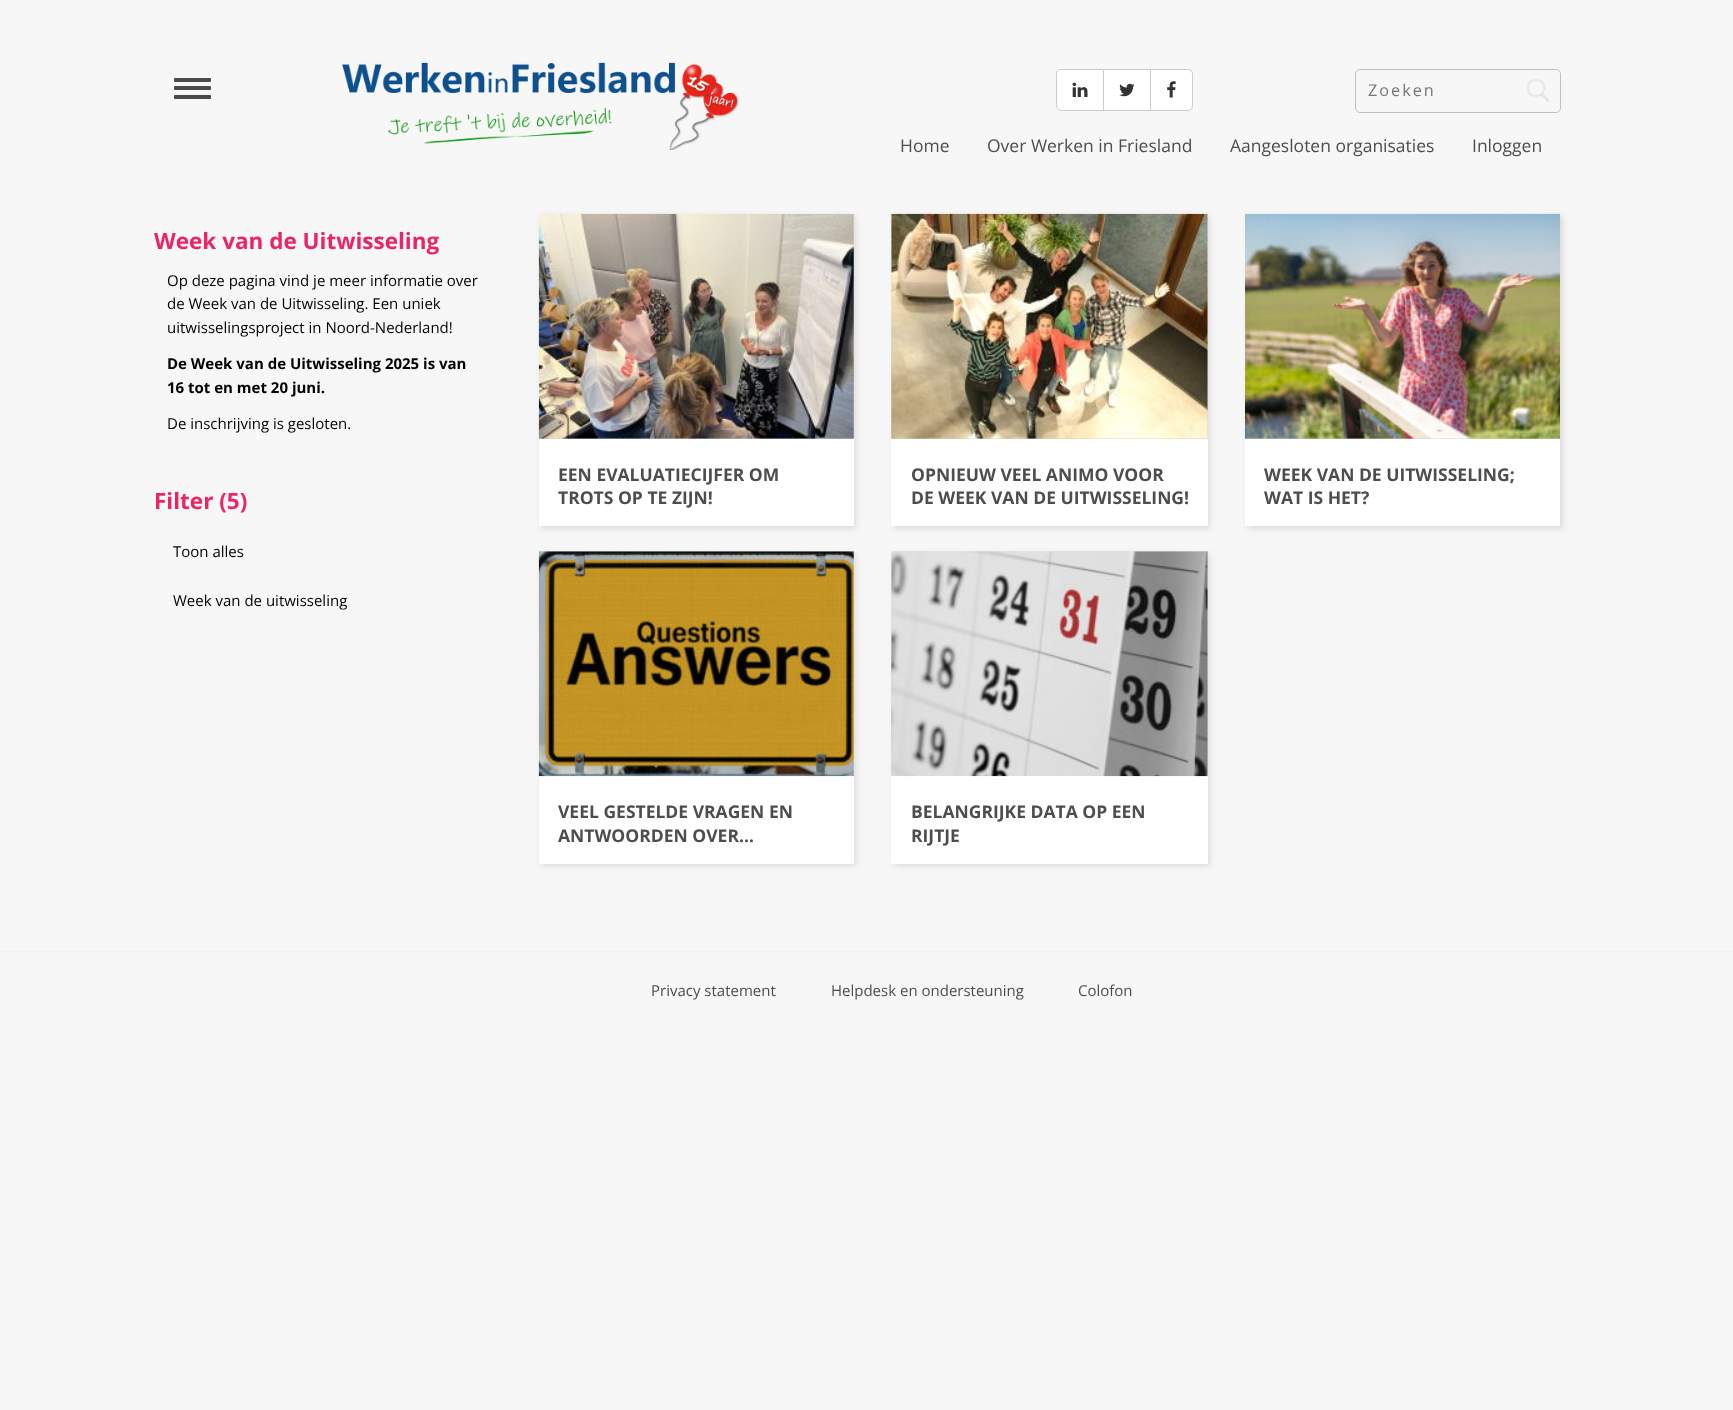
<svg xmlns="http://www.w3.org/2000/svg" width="1733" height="1410">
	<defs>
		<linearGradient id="g1" gradientUnits="userSpaceOnUse" x1="696" y1="214" x2="696" y2="526"><stop offset="0.15" stop-color="#E3E3E3" /><stop offset="0.44" stop-color="#D7D4D4" /></linearGradient>
		<clipPath id="clip1"><rect x="558" y="463" width="277" height="50" /></clipPath>
		<linearGradient id="g2" gradientUnits="userSpaceOnUse" x1="1049" y1="214" x2="1049" y2="526"><stop offset="0.15" stop-color="#E3E3E3" /><stop offset="0.44" stop-color="#D7D4D4" /></linearGradient>
		<linearGradient id="g3" gradientUnits="userSpaceOnUse" x1="1403" y1="214" x2="1403" y2="526"><stop offset="0.15" stop-color="#E3E3E3" /><stop offset="0.44" stop-color="#D7D4D4" /></linearGradient>
		<linearGradient id="g4" gradientUnits="userSpaceOnUse" x1="696" y1="551" x2="696" y2="864"><stop offset="0.15" stop-color="#E3E3E3" /><stop offset="0.44" stop-color="#D7D4D4" /></linearGradient>
		<linearGradient id="g5" gradientUnits="userSpaceOnUse" x1="1049" y1="551" x2="1049" y2="864"><stop offset="0.15" stop-color="#E3E3E3" /><stop offset="0.44" stop-color="#D7D4D4" /></linearGradient>
	</defs>
	<rect width="100%" height="100%" fill="#F8F7F7" />
	<rect x="174" y="78" width="37" height="4" rx="1" fill="#4A4A4A" />
	<rect x="174" y="86" width="37" height="4" rx="1" fill="#4A4A4A" />
	<rect x="174" y="95" width="37" height="4" rx="1" fill="#4A4A4A" />
	<image x="342" y="62" width="397" height="88" href="assets/img1.png" />
	<path d="M1061 69.5H1103.5V110.5H1061C1058.5 110.5 1056.5 108.5 1056.5 106V74C1056.5 71.5 1058.5 69.5 1061 69.5Z" fill="#FFFFFF" stroke="#CCCCCC" />
	<image x="1072" y="82" width="16" height="15" href="assets/img2.png" />
	<rect x="1103.5" y="69.5" width="47" height="41" fill="#FFFFFF" stroke="#CCCCCC" />
	<image x="1119" y="83" width="16" height="14" href="assets/img3.png" />
	<path d="M1150.5 69.5H1188C1190.5 69.5 1192.5 71.5 1192.5 74V106C1192.5 108.5 1190.5 110.5 1188 110.5H1150.5Z" fill="#FFFFFF" stroke="#CCCCCC" />
	<image x="1167" y="81" width="9" height="17" href="assets/img4.png" />
	<image x="1526" y="78" width="24" height="24" href="assets/img5.png" />
	<rect x="1355.5" y="69.5" width="205" height="43" rx="4.5" fill="none" stroke="#C0BEBE" />
	<text x="1368" y="96" font-family="Open Sans" font-size="16.25" letter-spacing="2" fill="#757575">Zoeken</text>
	<g font-family="Open Sans" font-size="17.5" fill="#4C4D4E">
		<text x="900" y="152">Home</text>
		<text x="987" y="152">Over Werken in Friesland</text>
		<text x="1230" y="152">Aangesloten organisaties</text>
		<text x="1472" y="152">Inloggen</text>
	</g>
	<text x="154" y="249" font-family="Open Sans" font-size="22.5" font-weight="700" fill="#E92663">Week van de Uitwisseling</text>
	<g font-family="Open Sans" font-size="15" fill="#000000">
		<text x="167" y="286">Op deze pagina vind je meer informatie over</text>
		<text x="167" y="309">de Week van de Uitwisseling. Een uniek</text>
		<text x="167" y="333">uitwisselingsproject in Noord-Nederland!</text>
	</g>
	<g font-family="Open Sans" font-size="15" font-weight="700" fill="#000000">
		<text x="167" y="369">De Week van de Uitwisseling 2025 is van</text>
		<text x="167" y="393">16 tot en met 20 juni.</text>
	</g>
	<text x="167" y="429" font-family="Open Sans" font-size="15" fill="#000000">De inschrijving is gesloten.</text>
	<text x="154" y="509" font-family="Open Sans" font-size="22.5" font-weight="700" fill="#E92663">Filter (5)</text>
	<g font-family="Open Sans" font-size="15" fill="#000000">
		<text x="173" y="557">Toon alles</text>
		<text x="173" y="606">Week van de uitwisseling</text>
	</g>
	<rect x="541" y="216" width="315" height="313" fill="#DCD9D9" filter="blur(3px)" />
	<rect x="539" y="214" width="315" height="225" fill="url(#g1)" />
	<image x="538" y="213" width="316" height="226" href="assets/img6.png" />
	<rect x="539" y="439" width="315" height="87" fill="#FFFFFF" />
	<text x="558" y="481" font-family="Open Sans" font-size="17.5" font-weight="700" fill="#4C4D4E">EEN EVALUATIECIJFER OM</text>
	<g clip-path="url(#clip1)">
		<text x="558" y="504" font-family="Open Sans" font-size="17.5" font-weight="700" fill="#4C4D4E">TROTS OP TE ZIJN!</text>
	</g>
	<rect x="894" y="216" width="316" height="313" fill="#DCD9D9" filter="blur(3px)" />
	<rect x="891" y="214" width="317" height="225" fill="url(#g2)" />
	<image x="891" y="213" width="317" height="226" href="assets/img7.png" />
	<rect x="891" y="439" width="317" height="87" fill="#FFFFFF" />
	<g font-family="Open Sans" font-size="17.5" font-weight="700" fill="#4C4D4E">
		<text x="911" y="481">OPNIEUW VEEL ANIMO VOOR</text>
		<text x="911" y="504">DE WEEK VAN DE UITWISSELING!</text>
	</g>
	<rect x="1248" y="216" width="315" height="313" fill="#DCD9D9" filter="blur(3px)" />
	<rect x="1245" y="438" width="315" height="1" fill="url(#g3)" />
	<image x="1245" y="213" width="315" height="226" href="assets/img8.png" />
	<rect x="1245" y="439" width="315" height="87" fill="#FFFFFF" />
	<g font-family="Open Sans" font-size="17.5" font-weight="700" fill="#4C4D4E">
		<text x="1264" y="481">WEEK VAN DE UITWISSELING;</text>
		<text x="1264" y="504">WAT IS HET?</text>
	</g>
	<rect x="541" y="554" width="315" height="312" fill="#DCD9D9" filter="blur(3px)" />
	<rect x="539" y="551" width="315" height="225" fill="url(#g4)" />
	<rect x="539" y="776" width="315" height="88" fill="#FFFFFF" />
	<image x="538" y="551" width="316" height="226" href="assets/img9.png" />
	<g font-family="Open Sans" font-size="17.5" font-weight="700" fill="#4C4D4E">
		<text x="558" y="818">VEEL GESTELDE VRAGEN EN</text>
		<text x="558" y="842">ANTWOORDEN OVER…</text>
	</g>
	<rect x="894" y="554" width="316" height="312" fill="#DCD9D9" filter="blur(3px)" />
	<rect x="891" y="551" width="317" height="225" fill="url(#g5)" />
	<rect x="891" y="776" width="317" height="88" fill="#FFFFFF" />
	<image x="891" y="551" width="317" height="226" href="assets/img10.png" />
	<g font-family="Open Sans" font-size="17.5" font-weight="700" fill="#4C4D4E">
		<text x="911" y="818">BELANGRIJKE DATA OP EEN</text>
		<text x="911" y="842">RIJTJE</text>
	</g>
	<rect x="0" y="951" width="1733" height="1" fill="#F1F1F1" />
	<g font-family="Open Sans" font-size="15" fill="#4C4D4E">
		<text x="651" y="996">Privacy statement</text>
		<text x="831" y="996">Helpdesk en ondersteuning</text>
		<text x="1078" y="996">Colofon</text>
	</g>
</svg>
